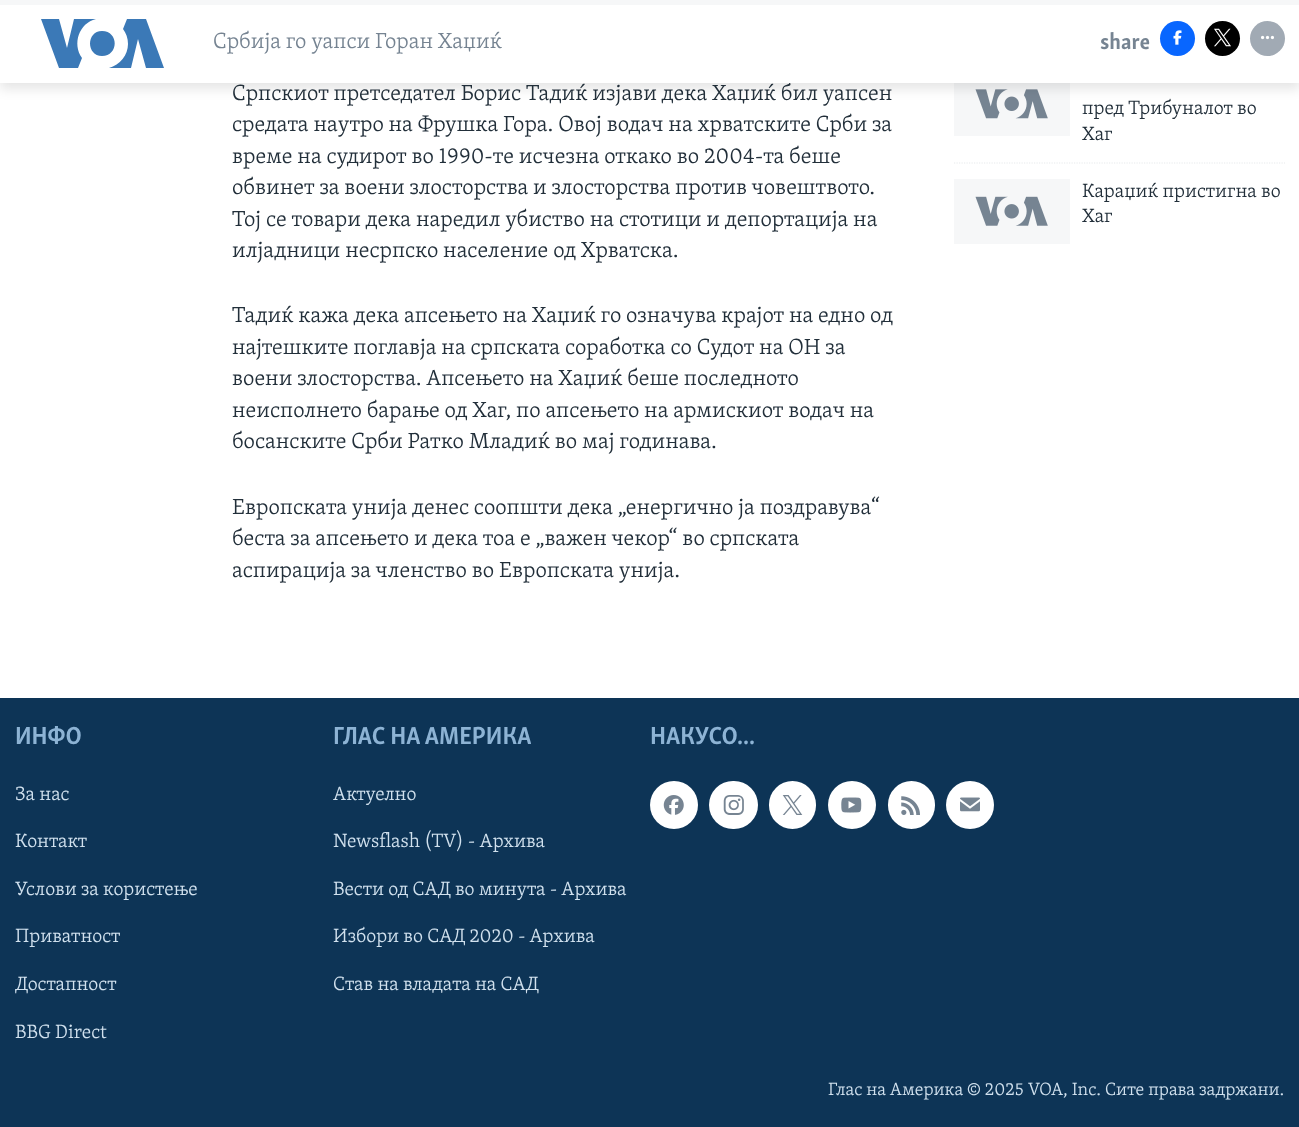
<svg xmlns="http://www.w3.org/2000/svg" width="1299" height="1127">
	<rect width="100%" height="100%" fill="#FFFFFF" />
	<rect x="954" y="83" width="116" height="53" fill="#F6F7F8" />
	<image x="975" y="89" width="73" height="30" href="assets/img4.png" />
	<rect x="0" y="6" width="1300" height="83" fill="#000000" fill-opacity="0.1" filter="blur(6px)" />
	<text x="232" y="100" font-family="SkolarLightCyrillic" font-size="22.5" font-weight="300" fill="#222F3A">Српскиот претседател Борис Тадиќ изјави дека Хаџиќ бил уапсен</text>
	<rect x="0" y="5" width="1299" height="78" fill="#FFFFFF" />
	<rect x="0" y="0" width="1299" height="5" fill="#F6F7F8" />
	<path d="M82 58L78 68H59L41 19H59L67 48L74 19H96C79 23 72 44 82 58ZM102 31C86 31 86 56 102 56C119 56 119 31 102 31ZM128 44C128 55 120 65 109 68H131L138 39L146 68H164L146 19H127L123 29C126 33 128 38 128 44Z" fill="#3B79B7" />
	<text x="213" y="48" font-family="SkolarLightCyrillic" font-size="22.5" font-weight="300" fill="#768492">Србија го уапси Горан Хаџиќ</text>
	<text x="1100" y="49" font-family="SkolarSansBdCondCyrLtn" font-size="22.5" font-weight="700" fill="#768492">share</text>
	<circle cx="1177.5" cy="38.5" r="17.5" fill="#0866FF" />
	<image x="1173" y="30" width="9" height="15" href="assets/img1.png" />
	<circle cx="1222.5" cy="38.5" r="17.5" fill="#000000" />
	<image x="1214" y="28" width="17" height="19" href="assets/img2.png" />
	<circle cx="1267.5" cy="38.5" r="17.5" fill="#A1AAB4" />
	<image x="1261" y="35" width="13" height="5" href="assets/img3.png" />
	<g font-family="SkolarLightCyrillic" font-size="22.5" font-weight="300" fill="#222F3A">
		<text x="232" y="131">средата наутро на Фрушка Гора. Овој водач на хрватските Срби за</text>
		<text x="232" y="163">време на судирот во 1990-те исчезна откако во 2004-та беше</text>
		<text x="232" y="194">обвинет за воени злосторства и злосторства против човештвото.</text>
		<text x="232" y="226">Тој се товари дека наредил убиство на стотици и депортација на</text>
		<text x="232" y="257">илјадници несрпско население од Хрватска.</text>
		<text x="232" y="322">Тадиќ кажа дека апсењето на Хаџиќ го означува крајот на едно од</text>
		<text x="232" y="354">најтешките поглавја на српската соработка со Судот на ОН за</text>
		<text x="232" y="385">воени злосторства. Апсењето на Хаџиќ беше последното</text>
		<text x="232" y="417">неисполнето барање од Хаг, по апсењето на армискиот водач на</text>
		<text x="232" y="448">босанските Срби Ратко Младиќ во мај годинава.</text>
		<text x="232" y="514">Европската унија денес соопшти дека „енергично ја поздравува“</text>
		<text x="232" y="545">беста за апсењето и дека тоа е „важен чекор“ во српската</text>
		<text x="232" y="577">аспирација за членство во Европската унија.</text>
	</g>
	<g font-family="SkolarLightCyrillic" font-size="19.75" font-weight="300" fill="#222F3A">
		<text x="1082" y="114">пред Трибуналот во</text>
		<text x="1082" y="140">Хаг</text>
	</g>
	<path d="M954 163H1285" fill="none" stroke="#E8EAEC" stroke-width="1.2" stroke-dasharray="1.25 1.25" />
	<rect x="954" y="179" width="116" height="65" fill="#F6F7F8" />
	<image x="975" y="196" width="73" height="30" href="assets/img5.png" />
	<g font-family="SkolarLightCyrillic" font-size="19.75" font-weight="300" fill="#222F3A">
		<text x="1082" y="197">Караџиќ пристигна во</text>
		<text x="1082" y="222">Хаг</text>
	</g>
	<rect x="0" y="698" width="1299" height="429" fill="#0D3456" />
	<text x="15" y="744" font-family="SkolarSansBdCondCyrLtn" font-size="25.25" font-weight="700" fill="#8DB3D4">ИНФО</text>
	<g font-family="SkolarLightCyrillic" font-size="19.75" font-weight="300" fill="#D1E1EE">
		<text x="15" y="800">За нас</text>
		<text x="15" y="847">Контакт</text>
		<text x="15" y="895">Услови за користење</text>
		<text x="15" y="942">Приватност</text>
		<text x="15" y="990">Достапност</text>
		<text x="15" y="1038">BBG Direct</text>
	</g>
	<text x="333" y="744" font-family="SkolarSansBdCondCyrLtn" font-size="25.25" font-weight="700" fill="#8DB3D4">ГЛАС НА АМЕРИКА</text>
	<g font-family="SkolarLightCyrillic" font-size="19.75" font-weight="300" fill="#D1E1EE">
		<text x="333" y="800">Актуелно</text>
		<text x="333" y="847">Newsflash (TV) - Архива</text>
		<text x="333" y="895">Вести од САД во минута - Архива</text>
		<text x="333" y="942">Избори во САД 2020 - Архива</text>
		<text x="333" y="990">Став на владата на САД</text>
	</g>
	<text x="650" y="744" font-family="SkolarSansBdCondCyrLtn" font-size="25.25" font-weight="700" fill="#8DB3D4">НАКУСО...</text>
	<circle cx="674" cy="805" r="24" fill="#FFFFFF" />
	<image x="663" y="795" width="21" height="20" href="assets/img6.png" />
	<rect x="709" y="781" width="49" height="48" rx="24" fill="#FFFFFF" />
	<image x="723" y="795" width="21" height="20" href="assets/img7.png" />
	<rect x="769" y="781" width="47" height="48" rx="23.5" fill="#FFFFFF" />
	<image x="782" y="795" width="21" height="20" href="assets/img8.png" />
	<circle cx="852" cy="805" r="24" fill="#FFFFFF" />
	<image x="841" y="797" width="21" height="16" href="assets/img9.png" />
	<rect x="888" y="781" width="47" height="48" rx="23.5" fill="#FFFFFF" />
	<image x="901" y="796" width="19" height="19" href="assets/img10.png" />
	<circle cx="970" cy="805" r="24" fill="#FFFFFF" />
	<image x="960" y="797" width="20" height="15" href="assets/img11.png" />
	<text x="828" y="1095" font-family="SkolarLightCyrillic" font-size="18.25" font-weight="300" fill="#D1E1EE">Глас на Америка © 2025 VOA, Inc. Сите права задржани.</text>
</svg>
